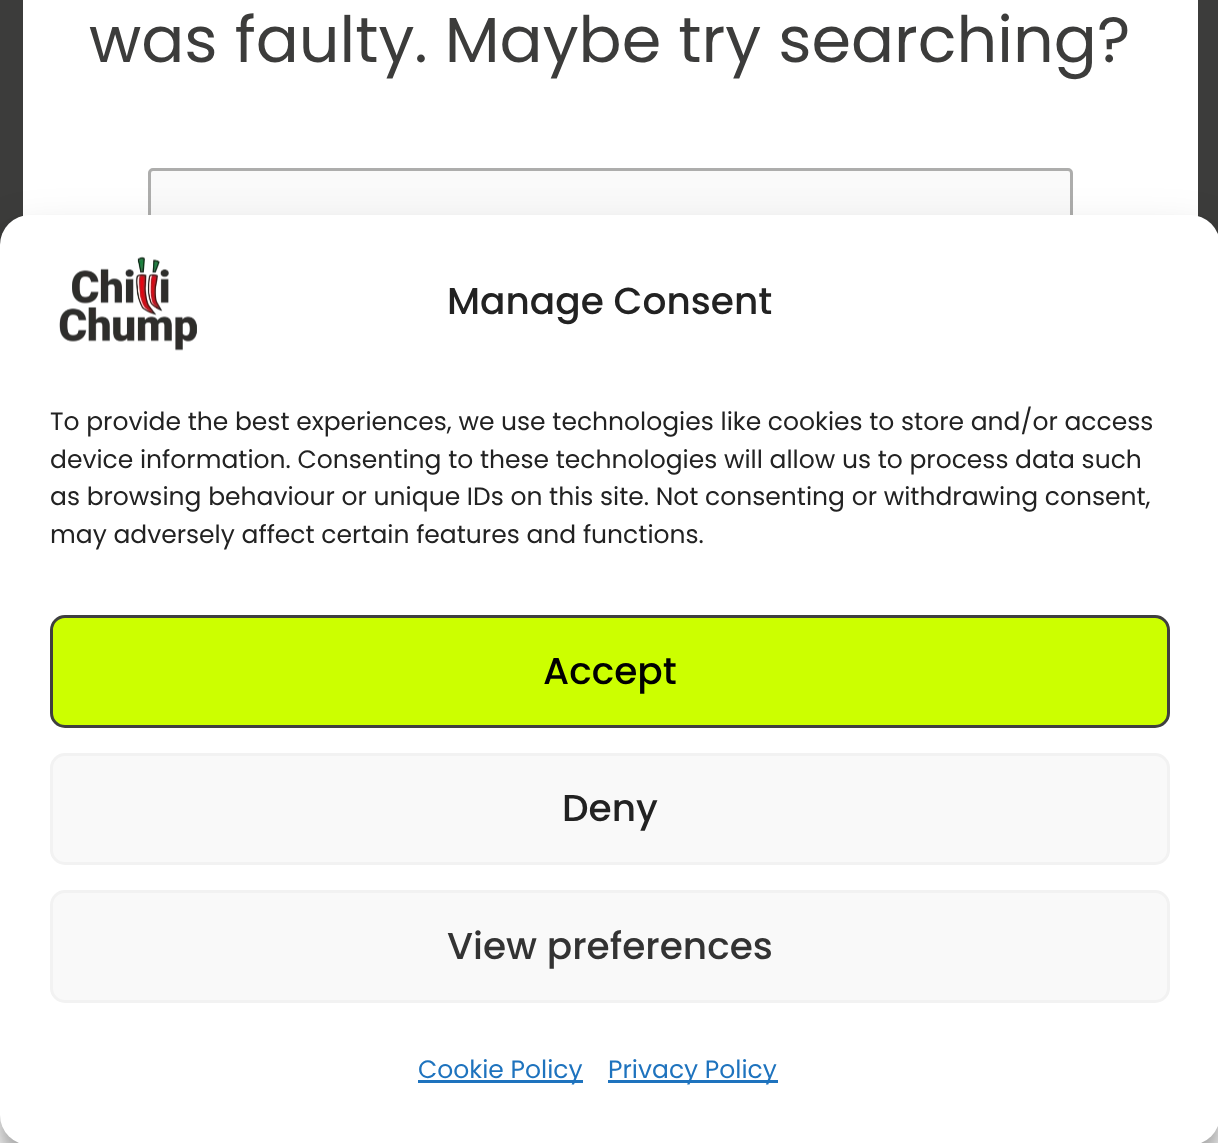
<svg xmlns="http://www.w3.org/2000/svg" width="1218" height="1143">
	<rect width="100%" height="100%" fill="#3C3C3B" />
	<rect x="23" y="0" width="1175" height="217" fill="#FFFFFF" />
	<text x="89" y="62" font-family="Poppins" font-size="63.75" fill="#3C3C3B">was faulty. Maybe try searching?</text>
	<rect x="149.5" y="169.5" width="922" height="134" rx="3.5" fill="#FAFAFA" stroke="#ADADAC" stroke-width="3" />
	<rect x="0" y="1115" width="1218" height="28" fill="#FFFFFF" />
	<rect x="0" y="230" width="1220" height="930" rx="30" fill="#000000" fill-opacity="0.23" filter="blur(7.5px)" />
	<rect x="0" y="240" width="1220" height="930" rx="30" fill="#000000" fill-opacity="0.19" filter="blur(25px)" />
	<rect x="0" y="215" width="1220" height="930" rx="30" fill="#FFFFFF" />
	<image x="59" y="256" width="138" height="95" href="assets/img1.png" />
	<text x="447" y="314" font-family="Poppins" font-size="37.5" font-weight="500" fill="#222222">Manage Consent</text>
	<g font-family="Poppins" font-size="25" fill="#222222">
		<text x="50" y="430">To provide the best experiences, we use technologies like cookies to store and/or access</text>
		<text x="50" y="468">device information. Consenting to these technologies will allow us to process data such</text>
		<text x="50" y="505">as browsing behaviour or unique IDs on this site. Not consenting or withdrawing consent,</text>
		<text x="50" y="543">may adversely affect certain features and functions.</text>
	</g>
	<rect x="51.5" y="616.5" width="1117" height="110" rx="13.5" fill="#CCFF00" stroke="#3F3F3F" stroke-width="3" />
	<text x="543" y="684" font-family="Poppins" font-size="37.5" font-weight="500" fill="#000000">Accept</text>
	<rect x="51.5" y="754.5" width="1117" height="109" rx="13.5" fill="#F9F9F9" stroke="#F2F2F2" stroke-width="3" />
	<text x="562" y="821" font-family="Poppins" font-size="37.5" font-weight="500" fill="#222222">Deny</text>
	<rect x="51.5" y="891.5" width="1117" height="110" rx="13.5" fill="#F9F9F9" stroke="#F2F2F2" stroke-width="3" />
	<text x="447" y="959" font-family="Poppins" font-size="37.5" font-weight="500" fill="#333333">View preferences</text>
	<rect x="418" y="1080" width="165" height="3" fill="#1E73BE" />
	<text x="418" y="1078" font-family="Poppins" font-size="25" fill="#1E73BE">Cookie Policy</text>
	<rect x="608" y="1080" width="170" height="3" fill="#1E73BE" />
	<text x="608" y="1078" font-family="Poppins" font-size="25" fill="#1E73BE">Privacy Policy</text>
</svg>
